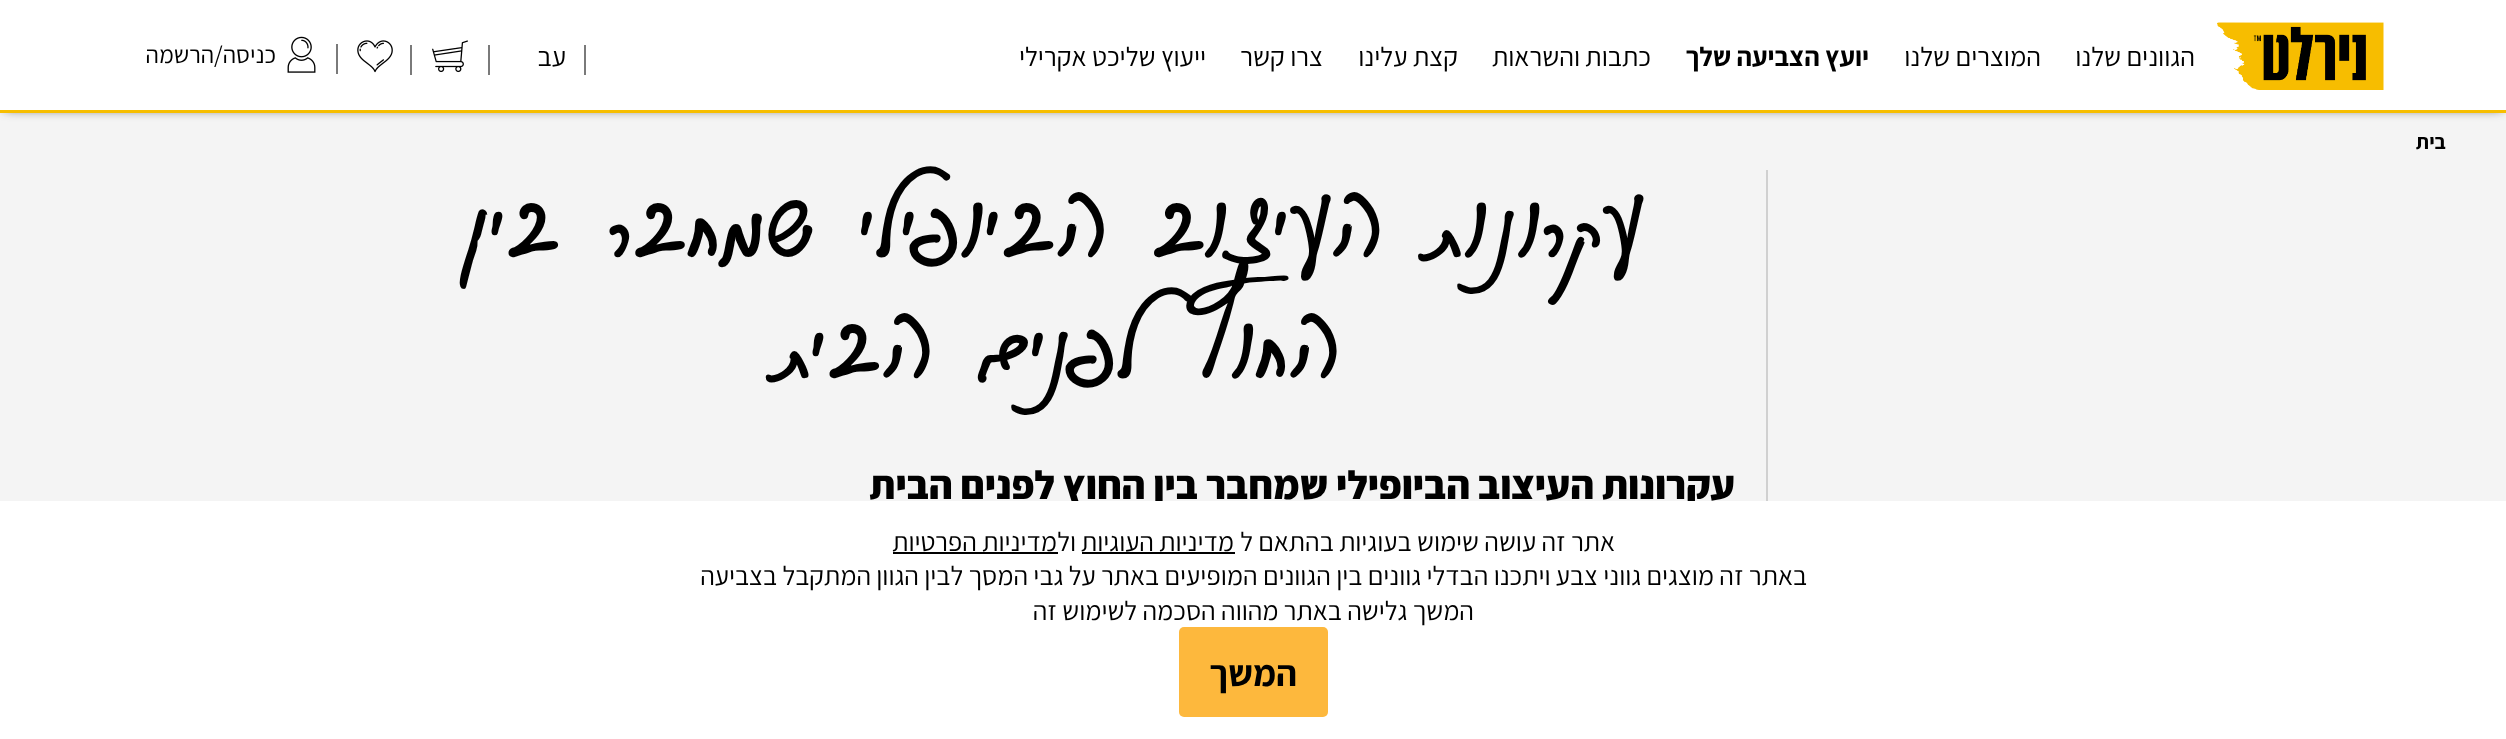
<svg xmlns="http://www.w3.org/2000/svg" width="2506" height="739">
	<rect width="100%" height="100%" fill="#F4F4F4" />
	<rect x="5" y="5" width="2497" height="103" fill="#222222" filter="blur(6px)" />
	<rect x="0" y="0" width="2506" height="110" fill="#FFFFFF" />
	<rect x="0" y="110" width="2506" height="3" fill="#F7BE00" />
	<image x="2217" y="22" width="167" height="68" href="assets/img1.png" />
	<g font-family="Assistant" font-size="27" direction="rtl" fill="#000000">
		<text x="2195" y="66">הגוונים שלנו</text>
		<text x="2041" y="66">המוצרים שלנו</text>
	</g>
	<text x="1869" y="66" font-family="Assistant" font-size="27" font-weight="700" direction="rtl" fill="#000000">יועץ הצביעה שלך</text>
	<g font-family="Assistant" font-size="27" direction="rtl" fill="#000000">
		<text x="1651" y="66">כתבות והשראות</text>
		<text x="1458" y="66">קצת עלינו</text>
		<text x="1323" y="66">צרו קשר</text>
		<text x="1206" y="66">ייעוץ שליכט אקרילי</text>
	</g>
	<rect x="584" y="45" width="2" height="30" fill="#7A7A7A" />
	<text x="566" y="66" font-family="Assistant" font-size="27" direction="rtl" fill="#000000">עב</text>
	<rect x="488" y="45" width="2" height="30" fill="#7A7A7A" />
	<image x="432" y="40" width="36" height="33" href="assets/img2.png" />
	<rect x="410" y="45" width="2" height="30" fill="#7A7A7A" />
	<image x="357" y="40" width="36" height="33" href="assets/img3.png" />
	<rect x="336" y="44" width="2" height="30" fill="#7A7A7A" />
	<image x="287" y="36" width="29" height="37" href="assets/img4.png" />
	<text x="276" y="63" font-family="Assistant" font-size="24.5" direction="rtl" fill="#000000">כניסה/הרשמה</text>
	<text x="2446" y="149" font-family="Assistant" font-size="21" font-weight="700" direction="rtl" fill="#000000">בית</text>
	<rect x="1766" y="170" width="2" height="331" fill="#D0D0D0" />
	<g font-family="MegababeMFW" font-size="121.9" font-weight="700" direction="rtl" fill="#000000">
		<text x="1642" y="257">עקרונות העיצוב הביופילי שמחבר בין</text>
		<text x="1337" y="378">החוץ לפנים הבית</text>
	</g>
	<text x="1735" y="499" font-family="Assistant" font-size="40.25" font-weight="800" direction="rtl" fill="#000000">עקרונות העיצוב הביופילי שמחבר בין החוץ לפנים הבית</text>
	<rect x="0" y="501" width="2506" height="238" fill="#FFFFFF" />
	<g font-family="Assistant" font-size="26.8" direction="rtl" fill="#000000">
		<text x="1615" y="551">אתר זה עושה שימוש בעוגיות בהתאם ל</text>
		<text x="1234" y="551">מדיניות העוגיות</text>
	</g>
	<rect x="1082" y="552" width="153" height="2" fill="#000000" />
	<g font-family="Assistant" font-size="26.8" direction="rtl" fill="#000000">
		<text x="1076" y="551">ול</text>
		<text x="1057" y="551">מדיניות הפרטיות</text>
	</g>
	<rect x="893" y="552" width="165" height="2" fill="#000000" />
	<g font-family="Assistant" font-size="26.8" direction="rtl" fill="#000000">
		<text x="1807" y="585">באתר זה מוצגים גווני צבע ויתכנו הבדלי גוונים בין הגוונים המופיעים באתר על גבי המסך לבין הגוון המתקבל בצביעה</text>
		<text x="1474" y="620">המשך גלישה באתר מהווה הסכמה לשימוש זה</text>
	</g>
	<rect x="1179" y="627" width="149" height="90" rx="5" fill="#FDB83D" />
	<text x="1297" y="686" font-family="Assistant" font-size="36.5" font-weight="700" direction="rtl" fill="#000000">המשך</text>
</svg>
